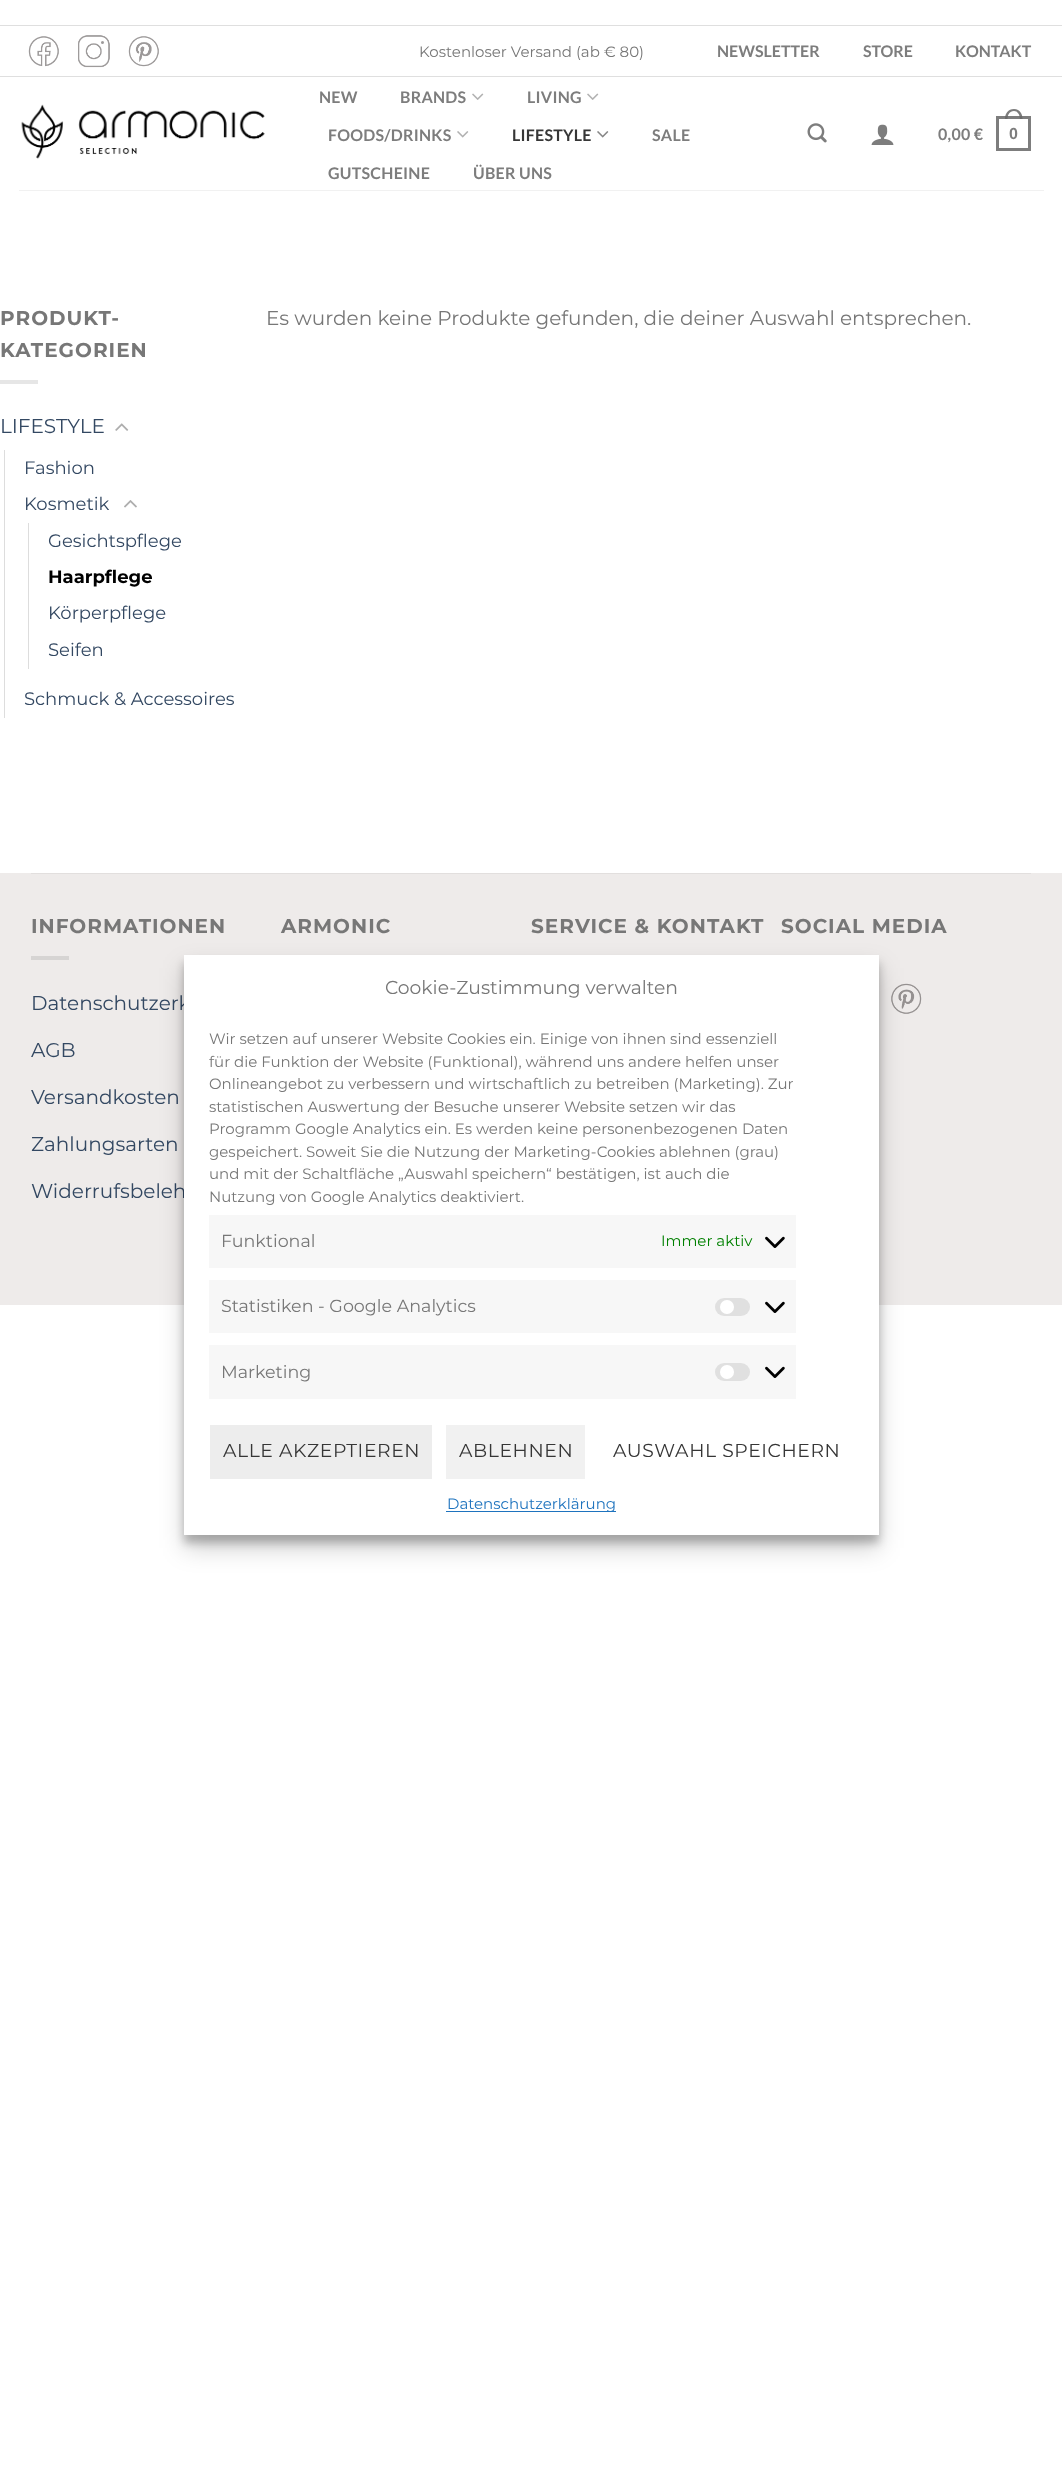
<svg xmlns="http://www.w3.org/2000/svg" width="1062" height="2488">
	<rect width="100%" height="100%" fill="#FFFFFF" />
	<rect x="0" y="25" width="1062" height="1" fill="#DFDFDF" />
	<rect x="0" y="76" width="1062" height="1" fill="#DFDFDF" />
	<image x="28" y="36" width="31" height="31" href="assets/img1.png" />
	<image x="78" y="35" width="32" height="33" href="assets/img2.png" />
	<image x="128" y="36" width="31" height="31" href="assets/img3.png" />
	<text x="419" y="57" font-family="Montserrat" font-size="15" fill="#777777">Kostenloser Versand (ab € 80)</text>
	<g font-family="Lato" font-size="16" font-weight="700" fill="#7D7D7D">
		<text x="717" y="57">NEWSLETTER</text>
		<text x="863" y="57">STORE</text>
		<text x="955" y="57">KONTAKT</text>
	</g>
	<image x="21" y="104" width="244" height="55" href="assets/img4.png" />
	<g font-family="Lato" font-size="16" font-weight="700" letter-spacing="0.25" fill="#7D7D7D">
		<text x="319" y="103">NEW</text>
		<text x="400" y="103">BRANDS</text>
	</g>
	<image x="472" y="93" width="12" height="7" href="assets/img5.png" />
	<text x="527" y="103" font-family="Lato" font-size="16" font-weight="700" letter-spacing="0.25" fill="#7D7D7D">LIVING</text>
	<image x="587" y="93" width="12" height="7" href="assets/img5.png" />
	<text x="328" y="141" font-family="Lato" font-size="16" font-weight="700" letter-spacing="0.25" fill="#7D7D7D">FOODS/DRINKS</text>
	<image x="457" y="131" width="12" height="7" href="assets/img6.png" />
	<text x="512" y="141" font-family="Lato" font-size="16" font-weight="700" letter-spacing="0.25" fill="#363636">LIFESTYLE</text>
	<image x="597" y="131" width="12" height="7" href="assets/img7.png" />
	<g font-family="Lato" font-size="16" font-weight="700" letter-spacing="0.25" fill="#7D7D7D">
		<text x="652" y="141">SALE</text>
		<text x="328" y="179">GUTSCHEINE</text>
		<text x="473" y="179">ÜBER UNS</text>
	</g>
	<image x="807" y="123" width="20" height="20" href="assets/img8.png" />
	<image x="871" y="124" width="23" height="21" href="assets/img9.png" />
	<text x="938" y="140" font-family="Lato" font-size="16" font-weight="700" letter-spacing="0.25" fill="#7D7D7D">0,00 €</text>
	<rect x="997.5" y="117.5" width="32" height="32" fill="none" stroke="#7D7D7D" stroke-width="3" />
	<path d="M1014 109C1019.5 109 1022.5 113.5 1022.5 119H1005C1005 113.5 1008 109 1014 109ZM1014 111C1018 111 1020 115 1020 119H1007.5C1007.5 115 1009.5 111 1014 111Z" fill="#666666" fill-opacity="0.85" fill-rule="evenodd" />
	<text x="1009" y="139" font-family="Liberation Sans" font-size="16" font-weight="700" letter-spacing="0.25" fill="#7D7D7D">0</text>
	<rect x="19" y="190" width="1025" height="1" fill="#F1F1F1" />
	<g font-family="Montserrat" font-size="20" font-weight="700" letter-spacing="1" fill="#777777">
		<text x="0" y="325">PRODUKT-</text>
		<text x="0" y="357">KATEGORIEN</text>
	</g>
	<rect x="0" y="380" width="38" height="4" fill="#E6E6E6" />
	<text x="0" y="433" font-family="Montserrat" font-size="20" fill="#334862">LIFESTYLE</text>
	<image x="115" y="423" width="14" height="8" href="assets/img10.png" />
	<rect x="4" y="450" width="1" height="268" fill="#DDDDDD" />
	<g font-family="Montserrat" font-size="18" fill="#334862">
		<text x="24" y="474">Fashion</text>
		<text x="24" y="510">Kosmetik</text>
	</g>
	<image x="124" y="500" width="13" height="8" href="assets/img11.png" />
	<rect x="28" y="523" width="1" height="146" fill="#DDDDDD" />
	<text x="48" y="547" font-family="Montserrat" font-size="18" fill="#334862">Gesichtspflege</text>
	<text x="48" y="583" font-family="Montserrat" font-size="18" font-weight="700" fill="#000000">Haarpflege</text>
	<g font-family="Montserrat" font-size="18" fill="#334862">
		<text x="48" y="619">Körperpflege</text>
		<text x="48" y="656">Seifen</text>
		<text x="24" y="705">Schmuck &amp; Accessoires</text>
	</g>
	<text x="266" y="325" font-family="Montserrat" font-size="20" fill="#777777">Es wurden keine Produkte gefunden, die deiner Auswahl entsprechen.</text>
	<rect x="0" y="873" width="1062" height="432" fill="#EEEBEA" />
	<rect x="31" y="873" width="1000" height="1" fill="#E2DFDE" />
	<text x="31" y="933" font-family="Montserrat" font-size="20" font-weight="700" letter-spacing="1" fill="#777777">INFORMATIONEN</text>
	<rect x="31" y="956" width="38" height="4" fill="#D6D4D3" />
	<g font-family="Montserrat" font-size="20" fill="#334862">
		<text x="31" y="1010">Datenschutzerk</text>
		<text x="31" y="1057">AGB</text>
		<text x="31" y="1104">Versandkosten</text>
		<text x="31" y="1151">Zahlungsarten</text>
		<text x="31" y="1198">Widerrufsbeleh</text>
	</g>
	<g font-family="Montserrat" font-size="20" font-weight="700" letter-spacing="1" fill="#777777">
		<text x="281" y="933">ARMONIC</text>
		<text x="531" y="933">SERVICE &amp; KONTAKT</text>
		<text x="781" y="933">SOCIAL MEDIA</text>
	</g>
	<image x="891" y="983" width="31" height="31" href="assets/img12.png" />
	<rect x="184" y="963" width="695" height="580" fill="#000000" fill-opacity="0.23" filter="blur(4px)" />
	<rect x="184" y="968" width="695" height="580" fill="#000000" fill-opacity="0.19" filter="blur(12.5px)" />
	<rect x="184" y="955" width="695" height="580" fill="#FFFFFF" />
	<text x="385" y="994" font-family="Montserrat" font-size="18.75" fill="#777777">Cookie-Zustimmung verwalten</text>
	<g font-family="Montserrat" font-size="15" fill="#777777">
		<text x="209" y="1044">Wir setzen auf unserer Website Cookies ein. Einige von ihnen sind essenziell</text>
		<text x="209" y="1067">für die Funktion der Website (Funktional), während uns andere helfen unser</text>
		<text x="209" y="1089">Onlineangebot zu verbessern und wirtschaftlich zu betreiben (Marketing). Zur</text>
		<text x="209" y="1112">statistischen Auswertung der Besuche unserer Website setzen wir das</text>
		<text x="209" y="1134">Programm Google Analytics ein. Es werden keine personenbezogenen Daten</text>
		<text x="209" y="1157">gespeichert. Soweit Sie die Nutzung der Marketing-Cookies ablehnen (grau)</text>
		<text x="209" y="1179">und mit der Schaltfläche „Auswahl speichern“ bestätigen, ist auch die</text>
		<text x="209" y="1202">Nutzung von Google Analytics deaktiviert.</text>
	</g>
	<rect x="209" y="1215" width="587" height="53" fill="#F7F7F7" />
	<text x="221" y="1247" font-family="Montserrat" font-size="17.5" fill="#777777">Funktional</text>
	<text x="661" y="1246" font-family="Montserrat" font-size="15" fill="#008000">Immer aktiv</text>
	<image x="765" y="1236" width="20" height="12" href="assets/img13.png" />
	<rect x="209" y="1280" width="587" height="53" fill="#F7F7F7" />
	<text x="221" y="1312" font-family="Montserrat" font-size="17.5" fill="#777777">Statistiken - Google Analytics</text>
	<rect x="715" y="1298" width="35" height="18" rx="9" fill="#E0E0E0" />
	<circle cx="727" cy="1307" r="7" fill="#FFFFFF" />
	<image x="765" y="1301" width="20" height="12" href="assets/img13.png" />
	<rect x="209" y="1345" width="587" height="54" fill="#F7F7F7" />
	<text x="221" y="1378" font-family="Montserrat" font-size="17.5" fill="#777777">Marketing</text>
	<rect x="715" y="1363" width="35" height="18" rx="9" fill="#E0E0E0" />
	<circle cx="727" cy="1372" r="7" fill="#FFFFFF" />
	<image x="765" y="1366" width="20" height="12" href="assets/img13.png" />
	<rect x="210" y="1425" width="222" height="54" fill="#EDEDED" />
	<text x="223" y="1457" font-family="Montserrat" font-size="18.75" letter-spacing="0.6" fill="#363636">ALLE AKZEPTIEREN</text>
	<rect x="446" y="1425" width="139" height="54" fill="#F1F1F1" />
	<g font-family="Montserrat" font-size="18.75" letter-spacing="0.6" fill="#363636">
		<text x="459" y="1457">ABLEHNEN</text>
		<text x="613" y="1457">AUSWAHL SPEICHERN</text>
	</g>
	<rect x="446" y="1511" width="170" height="1" fill="#1E73BE" />
	<text x="447" y="1509" font-family="Montserrat" font-size="15" fill="#1E73BE">Datenschutzerklärung</text>
</svg>
